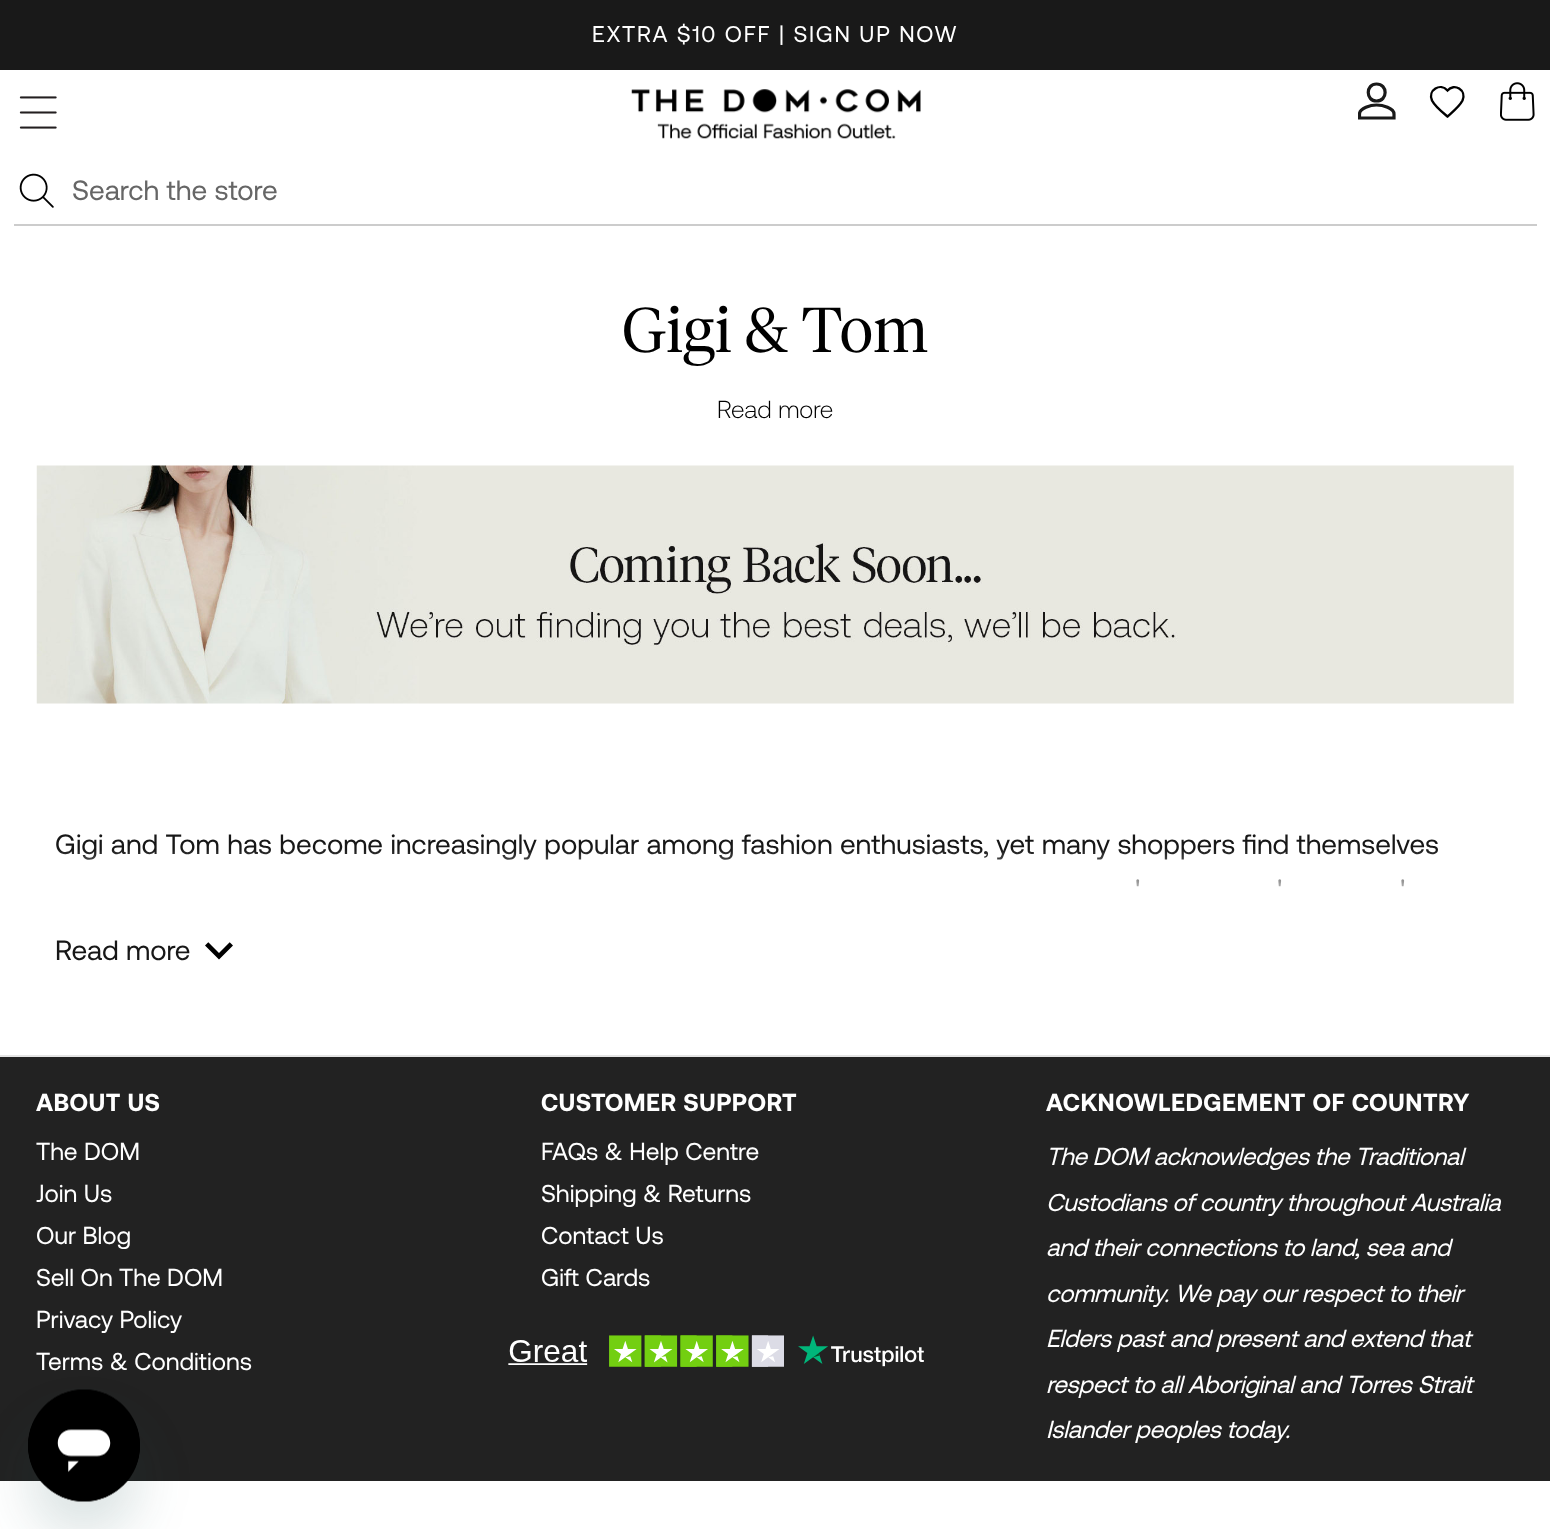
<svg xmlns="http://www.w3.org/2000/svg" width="1550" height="1529">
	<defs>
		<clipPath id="clip1"><rect x="1358" y="82" width="39" height="39" /></clipPath>
		<linearGradient id="g1" gradientUnits="userSpaceOnUse" x1="776" y1="821" x2="776" y2="908"><stop offset="0.32" stop-color="#FFFFFF" stop-opacity="0" /><stop offset="1" stop-color="#FFFFFF" /></linearGradient>
	</defs>
	<rect width="100%" height="100%" fill="#FFFFFF" />
	<rect x="0" y="0" width="1550" height="70" fill="#191919" />
	<text x="592" y="42" font-family="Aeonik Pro" font-size="22.75" letter-spacing="1.75" fill="#FFFFFF">EXTRA $10 OFF | SIGN UP NOW</text>
	<image x="19" y="96" width="38" height="33" href="assets/img1.png" />
	<image x="631" y="89" width="290" height="50" href="assets/img2.png" />
	<g clip-path="url(#clip1)">
		<path d="M1376.5 101C1388 101 1388 84 1376.5 84C1365.5 84 1365.5 101 1376.5 101ZM1376.5 105C1371 105 1359.5 108 1359.5 114V118H1394V114C1394 108 1382.5 105 1376.5 105Z" fill="none" stroke="#191919" stroke-width="3.2" />
	</g>
	<path d="M1447.5 116.5C1442 112 1435 106.5 1432 100.5C1427.5 90 1440.5 82.5 1447.5 90.5C1454 82.5 1467 90 1462.5 100.5C1459.5 106.5 1452.5 112 1447.5 116.5Z" fill="none" stroke="#000000" stroke-width="2.4" />
	<image x="1500" y="82" width="35" height="39" href="assets/img3.png" />
	<image x="19" y="173" width="35" height="35" href="assets/img4.png" />
	<rect x="14" y="224" width="1523" height="2" fill="#CCCCCC" />
	<text x="72" y="200" font-family="Aeonik Pro" font-size="28" fill="#666666">Search the store</text>
	<text x="622" y="352" font-family="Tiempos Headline" font-size="63" font-weight="300" letter-spacing="0.45" fill="#000000">Gigi &amp; Tom</text>
	<text x="717" y="418" font-family="Aeonik Pro" font-size="24.5" font-weight="300" fill="#000000">Read more</text>
	<image x="36" y="465" width="1478" height="239" href="assets/img5.png" />
	<g font-family="Aeonik Pro" font-size="28" fill="#171717">
		<text x="55" y="854">Gigi and Tom has become increasingly popular among fashion enthusiasts, yet many shoppers find themselves</text>
		<text x="1135" y="899">'</text>
		<text x="1277" y="899">'</text>
		<text x="1400" y="899">'</text>
	</g>
	<rect x="58" y="850" width="1380" height="37" fill="url(#g1)" />
	<text x="55" y="960" font-family="Aeonik Pro" font-size="28" fill="#171717">Read more</text>
	<image x="205" y="942" width="28" height="18" href="assets/img6.png" />
	<rect x="0" y="1057" width="1550" height="424" fill="#222222" />
	<rect x="0" y="1055" width="1550" height="2" fill="#E5E5E5" />
	<text x="36" y="1111" font-family="Aeonik Pro" font-size="24.5" font-weight="700" letter-spacing="0.45" fill="#FFFFFF">ABOUT US</text>
	<g font-family="Aeonik Pro" font-size="24.5" fill="#FFFFFF">
		<text x="36" y="1160">The DOM</text>
		<text x="36" y="1202">Join Us</text>
		<text x="36" y="1244">Our Blog</text>
		<text x="36" y="1286">Sell On The DOM</text>
		<text x="36" y="1328">Privacy Policy</text>
		<text x="36" y="1370">Terms &amp; Conditions</text>
	</g>
	<text x="541" y="1111" font-family="Aeonik Pro" font-size="24.5" font-weight="700" letter-spacing="0.45" fill="#FFFFFF">CUSTOMER SUPPORT</text>
	<g font-family="Aeonik Pro" font-size="24.5" fill="#FFFFFF">
		<text x="541" y="1160">FAQs &amp; Help Centre</text>
		<text x="541" y="1202">Shipping &amp; Returns</text>
		<text x="541" y="1244">Contact Us</text>
		<text x="541" y="1286">Gift Cards</text>
	</g>
	<image x="508" y="1335" width="416" height="32" href="assets/img7.png" />
	<text x="1046" y="1111" font-family="Aeonik Pro" font-size="24.5" font-weight="700" letter-spacing="0.45" fill="#FFFFFF">ACKNOWLEDGEMENT OF COUNTRY</text>
	<g font-family="Aeonik Pro" font-size="24.5" font-style="italic" letter-spacing="-0.35" fill="#FFFFFF">
		<text x="1046" y="1165">The DOM acknowledges the Traditional</text>
		<text x="1046" y="1211">Custodians of country throughout Australia</text>
		<text x="1046" y="1256">and their connections to land, sea and</text>
		<text x="1046" y="1302">community. We pay our respect to their</text>
		<text x="1046" y="1347">Elders past and present and extend that</text>
		<text x="1046" y="1393">respect to all Aboriginal and Torres Strait</text>
		<text x="1046" y="1438">Islander peoples today.</text>
	</g>
	<rect x="28" y="1425" width="112" height="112" rx="56" fill="#17494D" fill-opacity="0.15" filter="blur(26px)" />
	<image x="28" y="1389" width="112" height="113" href="assets/img8.png" />
</svg>
